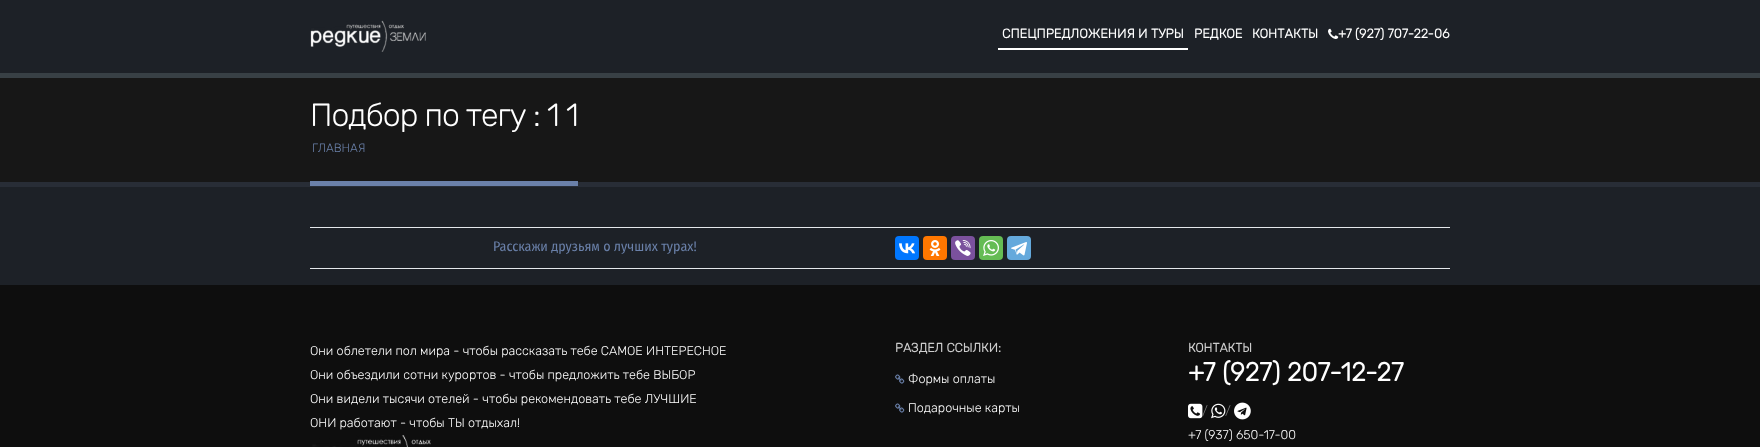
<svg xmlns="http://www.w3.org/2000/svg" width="1760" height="447">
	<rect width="100%" height="100%" fill="#1D2127" />
	<image x="310" y="20" width="116" height="32" href="assets/img1.png" />
	<rect x="998" y="48" width="190" height="2" fill="#FFFFFF" />
	<g font-family="Rubik" font-size="13" font-weight="700" fill="#FFFFFF">
		<text x="1002" y="38">СПЕЦПРЕДЛОЖЕНИЯ И ТУРЫ</text>
		<text x="1194" y="38">РЕДКОЕ</text>
		<text x="1252" y="38">КОНТАКТЫ</text>
	</g>
	<image x="1328" y="28" width="11" height="11" href="assets/img2.png" />
	<text x="1338" y="38" font-family="Rubik" font-size="13" font-weight="700" fill="#FFFFFF">+7 (927) 707-22-06</text>
	<rect x="0" y="78" width="1760" height="104" fill="#171717" />
	<rect x="0" y="73" width="1760" height="5" fill="#384045" />
	<rect x="0" y="182" width="1760" height="5" fill="#282D36" />
	<rect x="310" y="181" width="268" height="5" fill="#6A80A9" />
	<text x="310" y="126" font-family="Rubik" font-size="32" font-weight="300" letter-spacing="-1" fill="#FFFFFF">Подбор по тегу : 1 1</text>
	<text x="312" y="152" font-family="Rubik" font-size="12" font-weight="300" fill="#6A80A9">ГЛАВНАЯ</text>
	<rect x="310" y="227" width="1140" height="1" fill="#E4E7EB" />
	<rect x="310" y="268" width="1140" height="1" fill="#E4E7EB" />
	<text x="493" y="251" font-family="Fira Sans Condensed" font-size="14" fill="#6A80A9">Расскажи друзьям о лучших турах!</text>
	<rect x="895" y="236" width="24" height="24" rx="4" fill="#0077FF" />
	<image x="899" y="243" width="16" height="11" href="assets/img3.png" />
	<rect x="923" y="236" width="24" height="24" rx="4" fill="#FF7700" />
	<image x="929" y="240" width="12" height="16" href="assets/img4.png" />
	<rect x="951" y="236" width="24" height="24" rx="4" fill="#7B519D" />
	<image x="955" y="240" width="16" height="16" href="assets/img5.png" />
	<rect x="979" y="236" width="24" height="24" rx="4" fill="#65BC54" />
	<image x="983" y="240" width="16" height="16" href="assets/img6.png" />
	<rect x="1007" y="236" width="24" height="24" rx="4" fill="#64A9DC" />
	<image x="1011" y="242" width="16" height="14" href="assets/img7.png" />
	<rect x="0" y="285" width="1760" height="162" fill="#0E0E0E" />
	<g font-family="Rubik" font-size="12.6" font-weight="300" fill="#FFFFFF">
		<text x="310" y="355">Они облетели пол мира - чтобы рассказать тебе САМОЕ ИНТЕРЕСНОЕ</text>
		<text x="310" y="379">Они объездили сотни курортов - чтобы предложить тебе ВЫБОР</text>
		<text x="310" y="403">Они видели тысячи отелей - чтобы рекомендовать тебе ЛУЧШИЕ</text>
		<text x="310" y="427">ОНИ работают - чтобы ТЫ отдыхал!</text>
	</g>
	<image x="312" y="435" width="119" height="12" href="assets/img8.png" />
	<text x="895" y="352" font-family="Rubik" font-size="12.6" font-weight="700" fill="#CCCCCC">РАЗДЕЛ ССЫЛКИ:</text>
	<image x="895" y="374" width="10" height="10" href="assets/img9.png" />
	<text x="908" y="383" font-family="Rubik" font-size="12.6" font-weight="300" fill="#FFFFFF">Формы оплаты</text>
	<image x="895" y="403" width="10" height="10" href="assets/img9.png" />
	<text x="908" y="412" font-family="Rubik" font-size="12.6" font-weight="300" fill="#FFFFFF">Подарочные карты</text>
	<text x="1188" y="352" font-family="Rubik" font-size="12.6" font-weight="700" fill="#CCCCCC">КОНТАКТЫ</text>
	<text x="1188" y="381" font-family="Rubik" font-size="26" font-weight="700" fill="#FFFFFF">+7 (927) 207-12-27</text>
	<image x="1188" y="403" width="15" height="16" href="assets/img10.png" />
	<text x="1202" y="415" font-family="Rubik" font-size="12.6" font-weight="300" fill="#777777">/</text>
	<image x="1211" y="403" width="15" height="16" href="assets/img11.png" />
	<text x="1225" y="415" font-family="Rubik" font-size="12.6" font-weight="300" fill="#777777">/</text>
	<image x="1234" y="402" width="17" height="18" href="assets/img12.png" />
	<text x="1188" y="439" font-family="Rubik" font-size="12.6" font-weight="300" fill="#FFFFFF">+7 (937) 650-17-00</text>
</svg>
